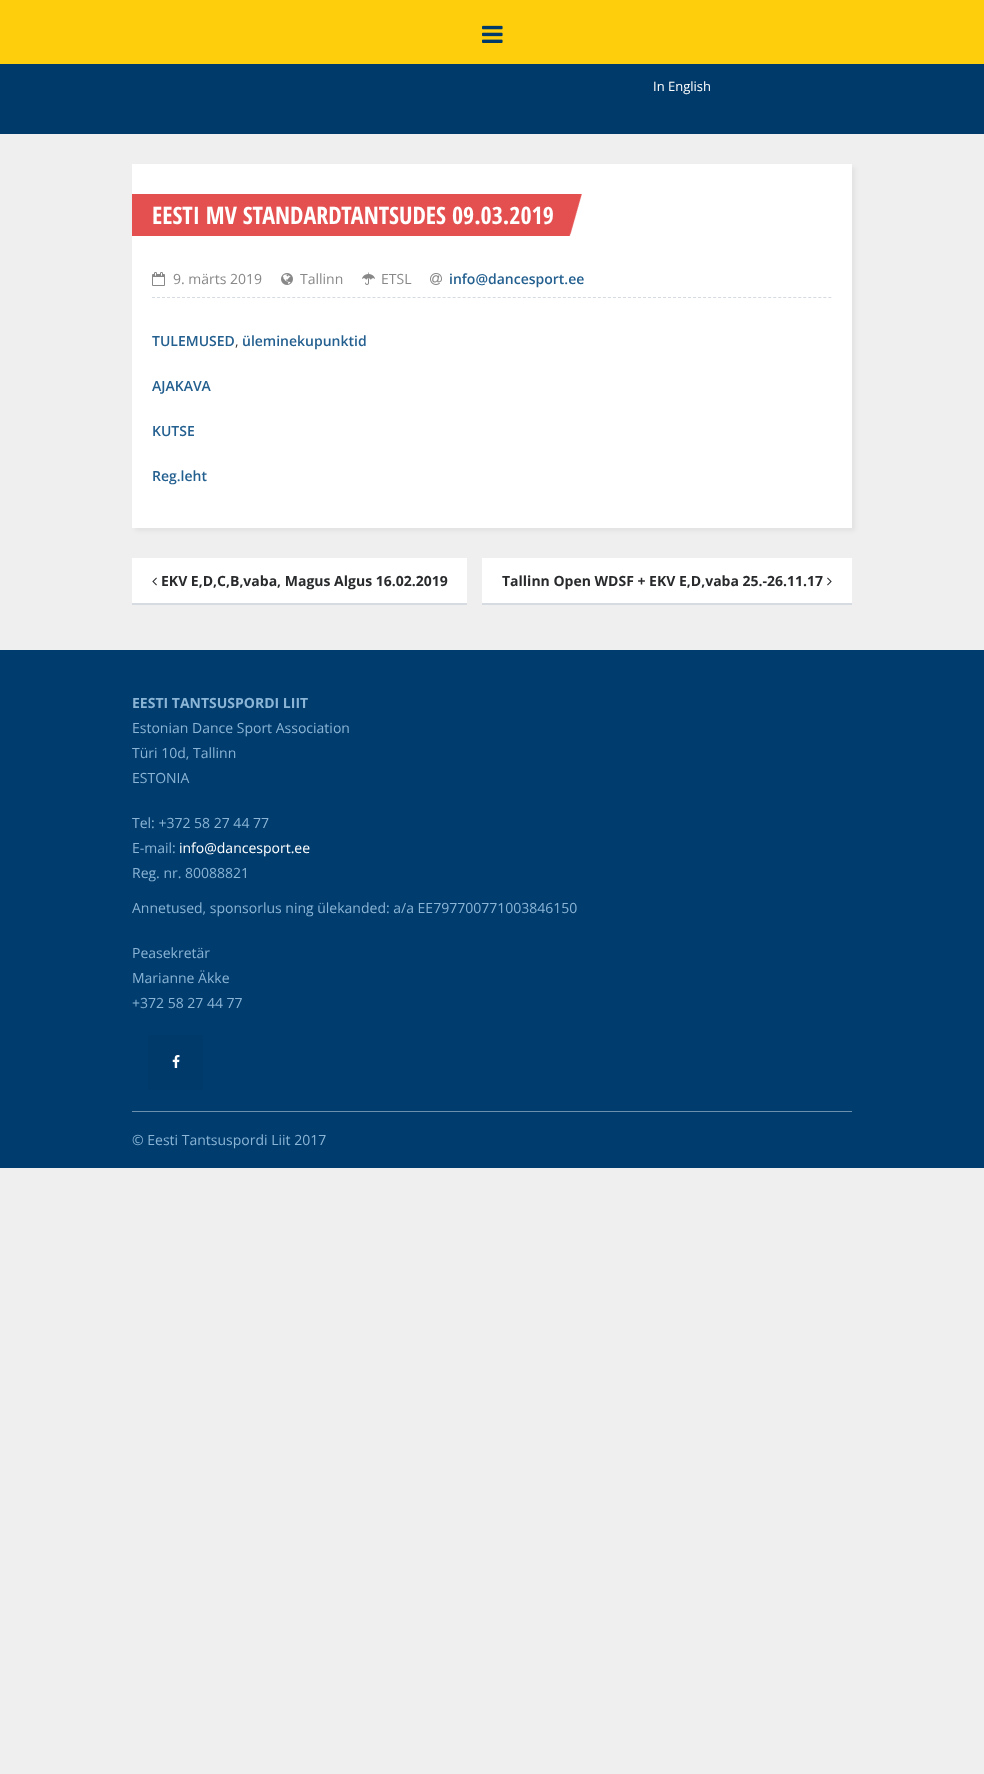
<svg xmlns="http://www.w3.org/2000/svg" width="984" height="1774">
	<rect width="100%" height="100%" fill="#EFEFEF" />
	<rect x="0" y="0" width="984" height="64" fill="#FECD0B" />
	<image x="482" y="25" width="21" height="18" href="assets/img1.png" />
	<rect x="0" y="64" width="984" height="70" fill="#003A6A" />
	<text x="653" y="91" font-family="Open Sans" font-size="13" fill="#FFFFFF">In English</text>
	<rect x="135" y="167" width="720" height="364" fill="#000000" fill-opacity="0.05" filter="blur(2px)" />
	<rect x="132" y="164" width="720" height="364" fill="#FFFFFF" />
	<image x="132" y="194" width="450" height="42" href="assets/img2.png" />
	<text x="152" y="224" font-family="Open Sans Condensed" font-size="24" font-weight="700" fill="#FFFFFF">EESTI MV STANDARDTANTSUDES 09.03.2019</text>
	<path d="M152 297.5H832" fill="none" stroke="#D5DBE0" stroke-dasharray="3 2.01" />
	<image x="152" y="272" width="13" height="14" href="assets/img3.png" />
	<text x="173" y="284" font-family="Open Sans" font-size="14" fill="#888888">9. märts 2019</text>
	<image x="281" y="273" width="12" height="12" href="assets/img4.png" />
	<text x="300" y="284" font-family="Open Sans" font-size="14" fill="#888888">Tallinn</text>
	<image x="362" y="272" width="13" height="13" href="assets/img5.png" />
	<text x="381" y="284" font-family="Open Sans" font-size="14" fill="#888888">ETSL</text>
	<image x="430" y="273" width="12" height="12" href="assets/img6.png" />
	<g font-family="Open Sans" font-size="14" font-weight="600" fill="#235F8F">
		<text x="449" y="284">info@dancesport.ee</text>
		<text x="152" y="346">TULEMUSED</text>
	</g>
	<text x="235" y="346" font-family="Open Sans" font-size="14" fill="#333333">,</text>
	<g font-family="Open Sans" font-size="14" font-weight="600" fill="#235F8F">
		<text x="242" y="346">üleminekupunktid</text>
		<text x="152" y="391">AJAKAVA</text>
		<text x="152" y="436">KUTSE</text>
		<text x="152" y="481">Reg.leht</text>
	</g>
	<rect x="132" y="603" width="335" height="2" fill="#D5DBE0" />
	<rect x="132" y="558" width="335" height="45" fill="#FFFFFF" />
	<image x="152" y="577" width="5" height="9" href="assets/img7.png" />
	<text x="161" y="586" font-family="Open Sans" font-size="14" font-weight="700" fill="#282A2C">EKV E,D,C,B,vaba, Magus Algus 16.02.2019</text>
	<rect x="482" y="603" width="370" height="2" fill="#D5DBE0" />
	<rect x="482" y="558" width="370" height="45" fill="#FFFFFF" />
	<text x="502" y="586" font-family="Open Sans" font-size="14" font-weight="700" fill="#282A2C">Tallinn Open WDSF + EKV E,D,vaba 25.-26.11.17</text>
	<image x="827" y="577" width="5" height="9" href="assets/img8.png" />
	<rect x="0" y="650" width="984" height="518" fill="#003C6E" />
	<text x="132" y="708" font-family="Open Sans" font-size="14" font-weight="700" fill="#8AB5D6">EESTI TANTSUSPORDI LIIT</text>
	<g font-family="Open Sans" font-size="14" fill="#8AB5D6">
		<text x="132" y="733">Estonian Dance Sport Association</text>
		<text x="132" y="758">Türi 10d, Tallinn</text>
		<text x="132" y="783">ESTONIA</text>
		<text x="132" y="828">Tel: +372 58 27 44 77</text>
		<text x="132" y="853">E-mail:</text>
	</g>
	<text x="179" y="853" font-family="Open Sans" font-size="14" fill="#FFFFFF">info@dancesport.ee</text>
	<g font-family="Open Sans" font-size="14" fill="#8AB5D6">
		<text x="132" y="878">Reg. nr. 80088821</text>
		<text x="132" y="913">Annetused, sponsorlus ning ülekanded: a/a EE797700771003846150</text>
		<text x="132" y="958">Peasekretär</text>
		<text x="132" y="983">Marianne Äkke</text>
		<text x="132" y="1008">+372 58 27 44 77</text>
	</g>
	<rect x="148" y="1035" width="55" height="55" fill="#003A6A" />
	<image x="172" y="1055" width="8" height="13" href="assets/img9.png" />
	<rect x="132" y="1111" width="720" height="1" fill="#6B90AD" />
	<text x="132" y="1145" font-family="Open Sans" font-size="14" fill="#8AB5D6">© Eesti Tantsuspordi Liit 2017</text>
</svg>
